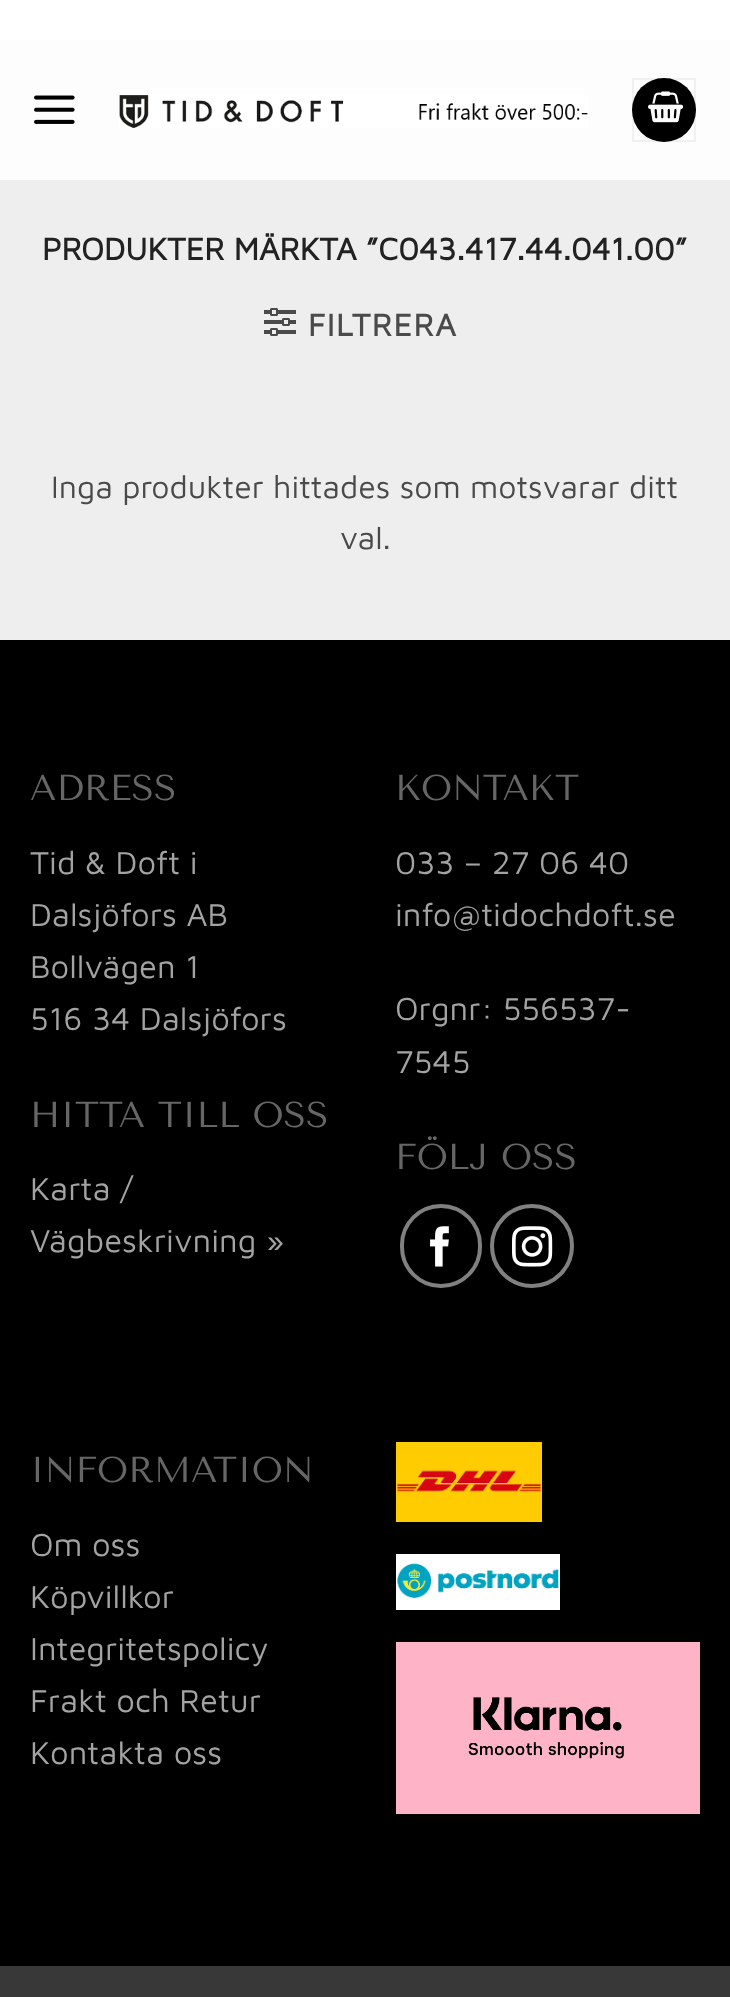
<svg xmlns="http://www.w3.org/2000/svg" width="730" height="1997">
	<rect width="100%" height="100%" fill="#EEEEEE" />
	<rect x="0" y="0" width="730" height="40" fill="#FFFFFF" />
	<rect x="0" y="40" width="730" height="140" fill="#FDFDFD" />
	<image x="34" y="95" width="41" height="29" href="assets/img1.png" />
	<image x="119" y="95" width="469" height="33" href="assets/img2.png" />
	<circle cx="664" cy="110" r="32" fill="#000000" />
	<rect x="633" y="79" width="62" height="62" fill="none" stroke="#000000" stroke-opacity="0.05" stroke-width="2" />
	<image x="648" y="91" width="36" height="32" href="assets/img3.png" />
	<text x="42" y="260" font-family="Maven Pro" font-size="32" font-weight="700" fill="#222222">PRODUKTER MÄRKTA ”C043.417.44.041.00”</text>
	<image x="264" y="308" width="32" height="28" href="assets/img4.png" />
	<text x="308" y="336" font-family="Maven Pro" font-size="32" font-weight="700" letter-spacing="1.5" fill="#4A4A4A">FILTRERA</text>
	<g font-family="Maven Pro" font-size="32" fill="#4A4A4A">
		<text x="51" y="498">Inga produkter hittades som motsvarar ditt</text>
		<text x="340" y="549">val.</text>
	</g>
	<rect x="0" y="640" width="730" height="1326" fill="#000000" />
	<text x="30" y="800" font-family="Tenor Sans" font-size="36" fill="#666666">ADRESS</text>
	<g font-family="Maven Pro" font-size="32.75" fill="#A3A3A3">
		<text x="30" y="874">Tid &amp; Doft i</text>
		<text x="30" y="926">Dalsjöfors AB</text>
		<text x="30" y="978">Bollvägen 1</text>
		<text x="30" y="1030">516 34 Dalsjöfors</text>
	</g>
	<text x="30" y="1127" font-family="Tenor Sans" font-size="36" fill="#666666">HITTA TILL OSS</text>
	<g font-family="Maven Pro" font-size="32.75" fill="#A3A3A3">
		<text x="30" y="1200">Karta /</text>
		<text x="30" y="1252">Vägbeskrivning »</text>
	</g>
	<text x="395" y="800" font-family="Tenor Sans" font-size="36" fill="#666666">KONTAKT</text>
	<g font-family="Maven Pro" font-size="32.75" fill="#A3A3A3">
		<text x="395" y="874">033 – 27 06 40</text>
		<text x="395" y="926">info@tidochdoft.se</text>
		<text x="395" y="1020">Orgnr: 556537-</text>
		<text x="395" y="1073">7545</text>
	</g>
	<text x="395" y="1169" font-family="Tenor Sans" font-size="36" fill="#666666">FÖLJ OSS</text>
	<rect x="402" y="1206" width="78" height="80" rx="39" fill="none" stroke="#808080" stroke-width="4" />
	<image x="430" y="1226" width="19" height="41" href="assets/img5.png" />
	<circle cx="532" cy="1246" r="40" fill="none" stroke="#808080" stroke-width="4" />
	<image x="512" y="1226" width="41" height="41" href="assets/img6.png" />
	<text x="30" y="1482" font-family="Tenor Sans" font-size="36" fill="#666666">INFORMATION</text>
	<g font-family="Maven Pro" font-size="32.75" fill="#A3A3A3">
		<text x="30" y="1556">Om oss</text>
		<text x="30" y="1608">Köpvillkor</text>
		<text x="30" y="1660">Integritetspolicy</text>
		<text x="30" y="1712">Frakt och Retur</text>
		<text x="30" y="1764">Kontakta oss</text>
	</g>
	<image x="396" y="1442" width="146" height="80" href="assets/img7.png" />
	<image x="396" y="1554" width="164" height="56" href="assets/img8.png" />
	<image x="396" y="1642" width="304" height="172" href="assets/img9.png" />
	<rect x="0" y="1966" width="730" height="31" fill="#383838" />
</svg>
